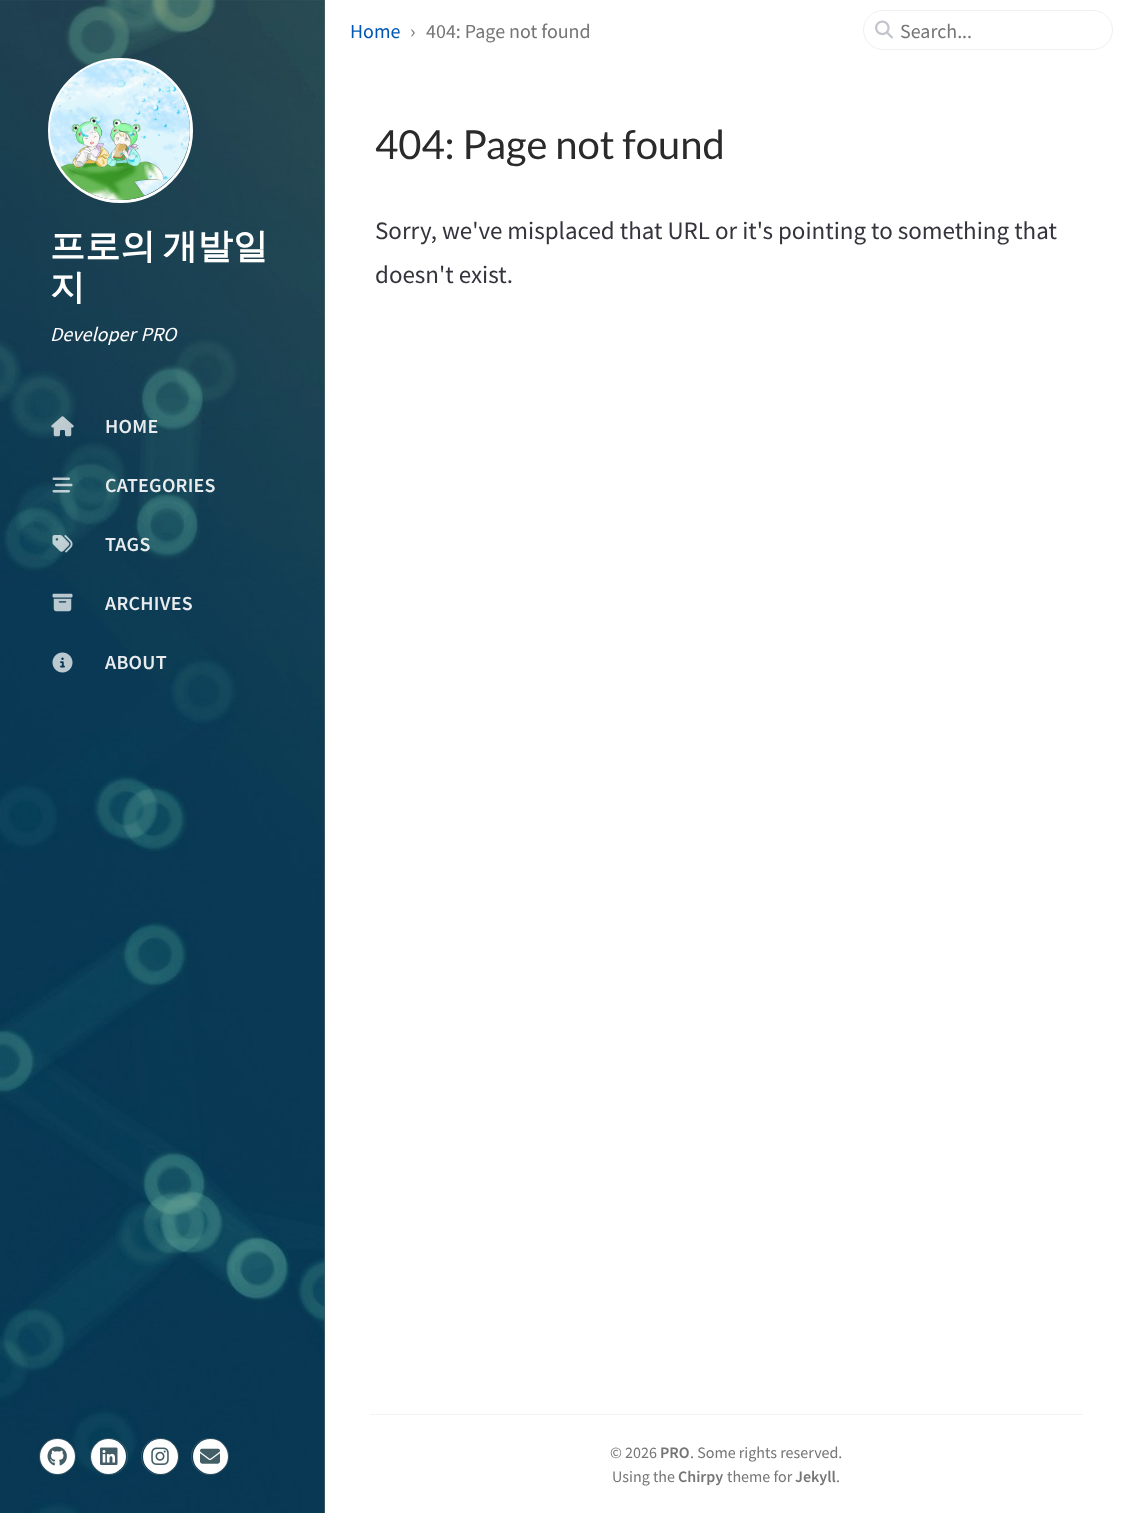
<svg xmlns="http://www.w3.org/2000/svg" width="1127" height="1513">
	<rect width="100%" height="100%" fill="#FFFFFF" />
	<image x="0" y="0" width="325" height="1513" href="assets/img1.png" />
	<rect x="324" y="0" width="1" height="1513" fill="#435E66" fill-opacity="0.8" />
	<circle cx="120.5" cy="130.5" r="71" fill="none" stroke="#FFFFFF" stroke-width="3" />
	<image x="50" y="60" width="140" height="140" href="assets/img2.png" />
	<g font-family="WenQuanYi Zen Hei" font-size="35" font-weight="700" letter-spacing="0.25" fill="#FFFFFF">
		<text x="50" y="258" word-spacing="-4">프로의 개발일</text>
		<text x="50" y="299">지</text>
	</g>
	<text x="50" y="341" word-spacing="1" font-family="Source Sans Pro" font-size="20" font-style="italic" fill="#FFFFFF">Developer PRO</text>
	<image x="51" y="416" width="23" height="21" href="assets/img3.png" />
	<text x="105" y="433" font-family="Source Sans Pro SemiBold" font-size="20" font-weight="600" letter-spacing="0.25" fill="#E8ECEE">HOME</text>
	<image x="52" y="477" width="21" height="16" href="assets/img4.png" />
	<text x="105" y="492" font-family="Source Sans Pro SemiBold" font-size="20" font-weight="600" letter-spacing="0.25" fill="#E8ECEE">CATEGORIES</text>
	<image x="52" y="535" width="21" height="18" href="assets/img5.png" />
	<text x="105" y="551" font-family="Source Sans Pro SemiBold" font-size="20" font-weight="600" letter-spacing="0.25" fill="#E8ECEE">TAGS</text>
	<image x="52" y="593" width="21" height="19" href="assets/img6.png" />
	<text x="105" y="610" font-family="Source Sans Pro SemiBold" font-size="20" font-weight="600" letter-spacing="0.25" fill="#E8ECEE">ARCHIVES</text>
	<image x="52" y="652" width="21" height="21" href="assets/img7.png" />
	<text x="105" y="669" font-family="Source Sans Pro SemiBold" font-size="20" font-weight="600" letter-spacing="0.25" fill="#E8ECEE">ABOUT</text>
	<circle cx="57.5" cy="1456.5" r="18" fill="none" stroke="#435E66" stroke-opacity="0.8" />
	<circle cx="57.5" cy="1456.5" r="17.5" fill="#FFFFFF" />
	<image x="47" y="1446" width="20" height="20" href="assets/img8.png" />
	<rect x="90.5" y="1438.5" width="37" height="36" rx="18" fill="none" stroke="#435E66" stroke-opacity="0.8" />
	<circle cx="108.5" cy="1456.5" r="17.5" fill="#FFFFFF" />
	<image x="100" y="1447" width="18" height="18" href="assets/img9.png" />
	<rect x="141.5" y="1438.5" width="37" height="36" rx="18" fill="none" stroke="#375662" />
	<circle cx="160.5" cy="1456.5" r="17.5" fill="#FFFFFF" />
	<image x="151" y="1447" width="18" height="18" href="assets/img10.png" />
	<rect x="191.5" y="1438.5" width="37" height="36" rx="18" fill="none" stroke="#375662" />
	<circle cx="210.5" cy="1456.5" r="17.5" fill="#FFFFFF" />
	<image x="200" y="1448" width="20" height="16" href="assets/img11.png" />
	<text x="350" y="38" font-family="Source Sans Pro" font-size="20" fill="#0056B2">Home</text>
	<g font-family="Source Sans Pro" font-size="20" fill="#757575">
		<text x="410" y="38">›</text>
		<text x="426" y="38">404: Page not found</text>
	</g>
	<rect x="863.5" y="10.5" width="249" height="39" rx="19.5" fill="none" stroke="#F0F0F0" />
	<image x="875" y="20" width="18" height="19" href="assets/img12.png" />
	<text x="900" y="38" font-family="Source Sans Pro" font-size="20" fill="#757575">Search...</text>
	<text x="375" y="159" font-family="Lato" font-size="40" fill="#2A2A2A">404: Page not found</text>
	<g font-family="Source Sans Pro" font-size="25" fill="#34343C">
		<text x="375" y="239">Sorry, we've misplaced that URL or it's pointing to something that</text>
		<text x="375" y="283">doesn't exist.</text>
	</g>
	<rect x="370" y="1414" width="713" height="1" fill="#F3F3F3" />
	<text x="610" y="1458" font-family="Source Sans Pro" font-size="16" fill="#757575">© 2026</text>
	<text x="660" y="1458" font-family="Source Sans Pro SemiBold" font-size="16" font-weight="600" fill="#757575">PRO</text>
	<g font-family="Source Sans Pro" font-size="16" fill="#757575">
		<text x="690" y="1458">. Some rights reserved.</text>
		<text x="612" y="1482">Using the</text>
	</g>
	<text x="678" y="1482" font-family="Source Sans Pro SemiBold" font-size="16" font-weight="600" fill="#757575">Chirpy</text>
	<text x="727" y="1482" font-family="Source Sans Pro" font-size="16" fill="#757575">theme for</text>
	<text x="795" y="1482" font-family="Source Sans Pro SemiBold" font-size="16" font-weight="600" fill="#757575">Jekyll</text>
	<text x="836" y="1482" font-family="Source Sans Pro" font-size="16" fill="#757575">.</text>
</svg>
